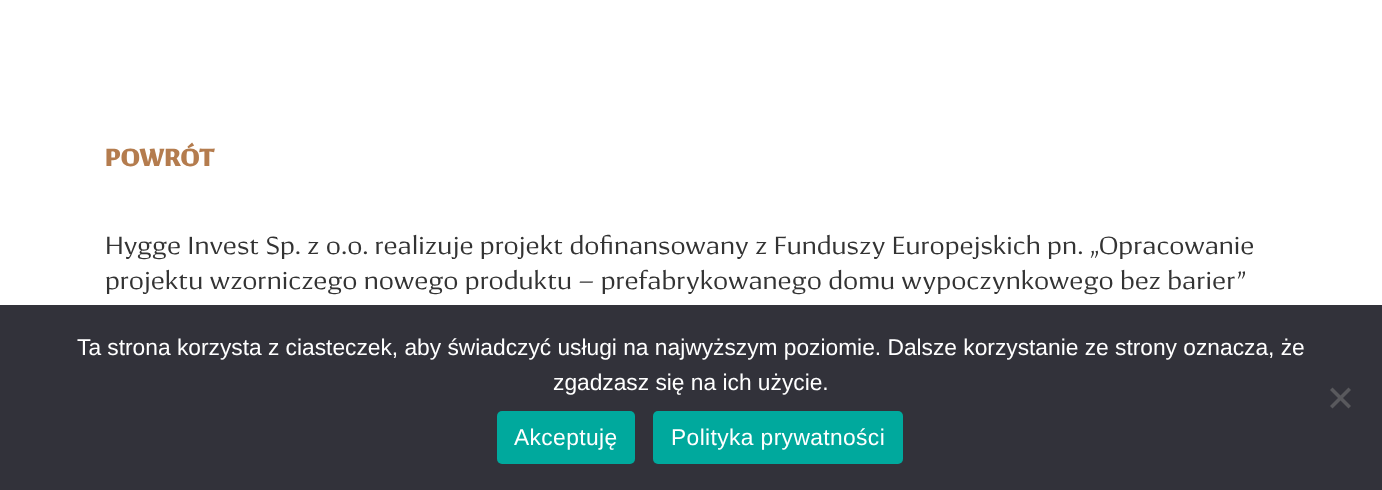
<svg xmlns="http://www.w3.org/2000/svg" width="1382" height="490">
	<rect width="100%" height="100%" fill="#FFFFFF" />
	<text x="105" y="166" font-family="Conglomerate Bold" font-size="24.5" font-weight="700" fill="#B47C4E">POWRÓT</text>
	<g font-family="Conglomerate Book" font-size="24.5" fill="#333333">
		<text x="105" y="254">Hygge Invest Sp. z o.o. realizuje projekt dofinansowany z Funduszy Europejskich pn. „Opracowanie</text>
		<text x="105" y="289">projektu wzorniczego nowego produktu – prefabrykowanego domu wypoczynkowego bez barier”</text>
	</g>
	<rect x="0" y="305" width="1382" height="185" fill="#32323A" />
	<g font-family="Liberation Sans" font-size="22.75" fill="#FFFFFF">
		<text x="77" y="355">Ta strona korzysta z ciasteczek, aby świadczyć usługi na najwyższym poziomie. Dalsze korzystanie ze strony oznacza, że</text>
		<text x="553" y="390">zgadzasz się na ich użycie.</text>
	</g>
	<path d="M1348.5 387.5L1351 390L1332.5 408.5L1330 406Z" fill="#59595D" />
	<path d="M1330 390L1332.5 387.5L1351 406L1348.5 408.5Z" fill="#59595D" />
	<rect x="497" y="411" width="138" height="53" rx="5" fill="#00A99D" />
	<text x="514" y="445" font-family="Liberation Sans" font-size="22.75" letter-spacing="0.4" fill="#FFFFFF">Akceptuję</text>
	<rect x="653" y="411" width="250" height="53" rx="5" fill="#00A99D" />
	<text x="671" y="445" font-family="Liberation Sans" font-size="22.75" letter-spacing="0.4" fill="#FFFFFF">Polityka prywatności</text>
</svg>
